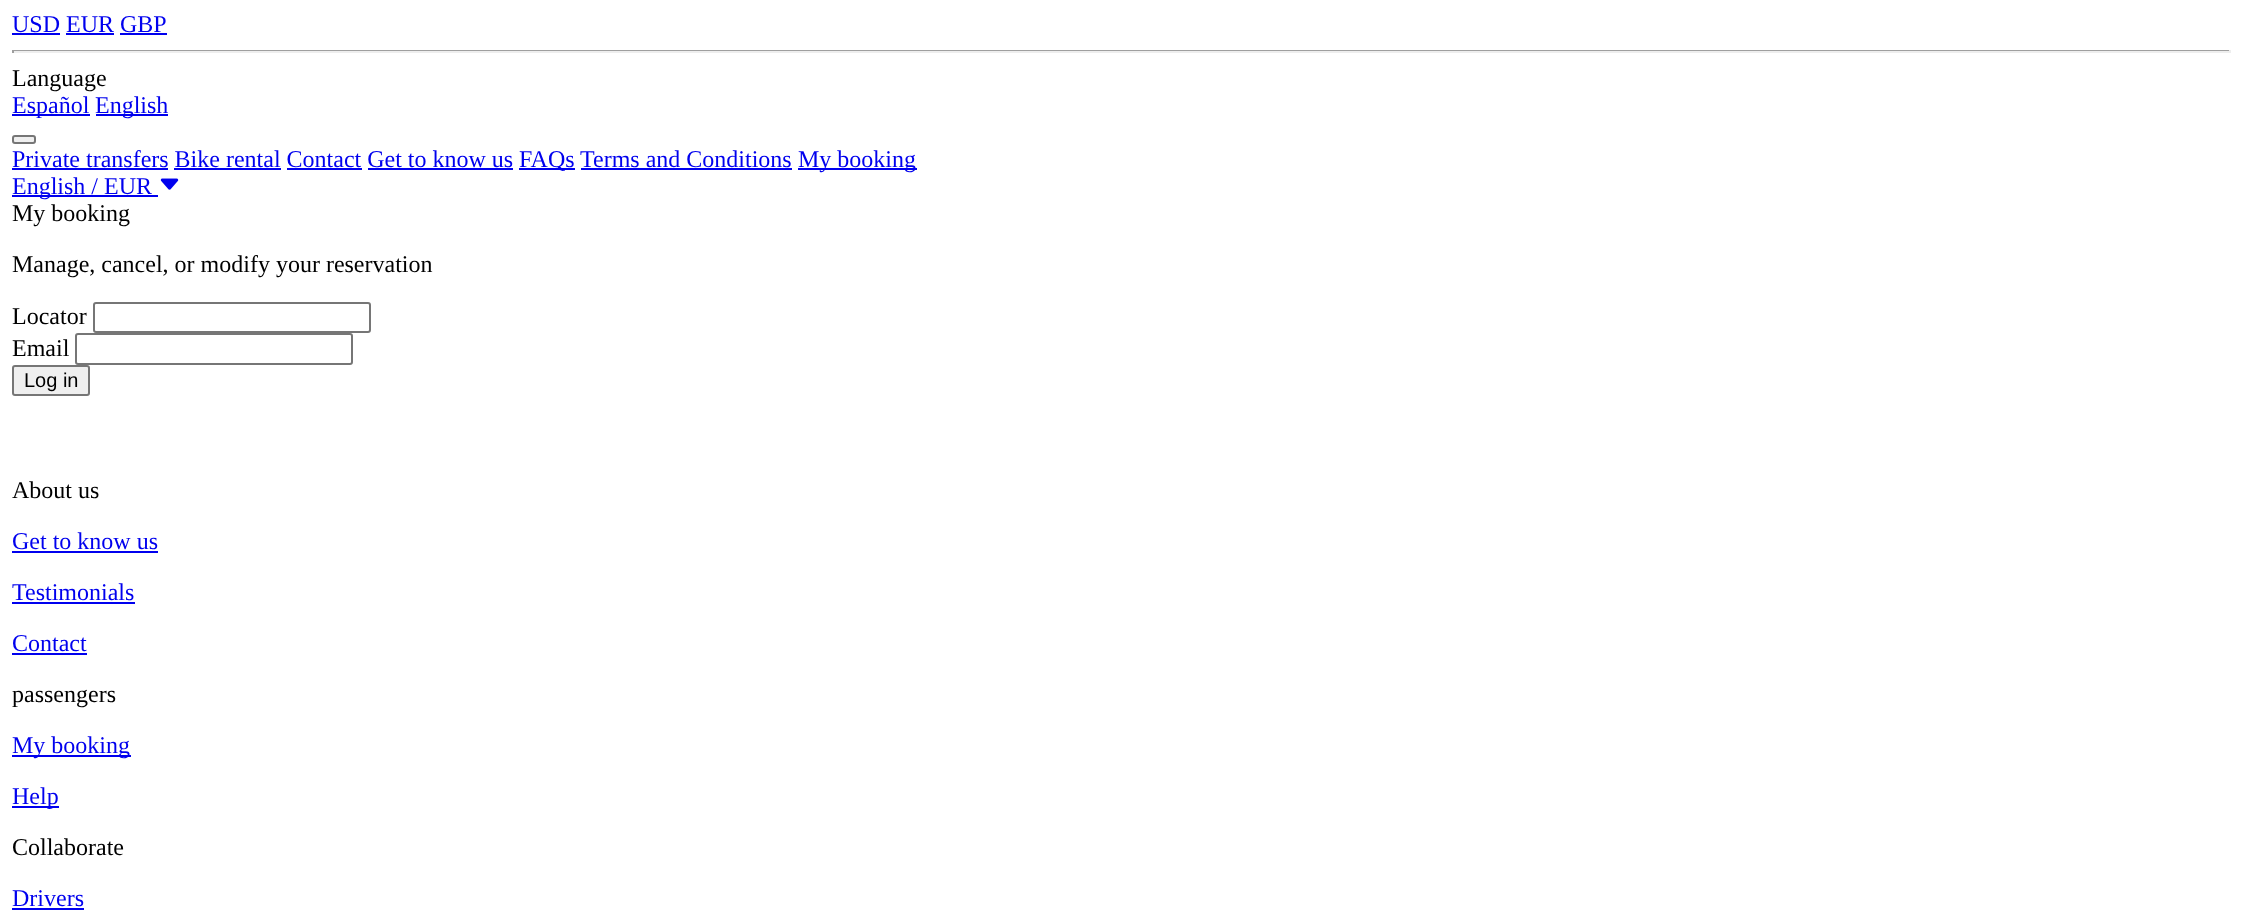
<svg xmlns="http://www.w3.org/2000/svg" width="2242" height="916">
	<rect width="100%" height="100%" fill="#FFFFFF" />
	<text x="12" y="32" font-family="Liberation Serif" font-size="24" fill="#0000EE">USD EUR GBP</text>
	<rect x="12" y="33" width="48" height="2" fill="#0000EE" />
	<rect x="66" y="33" width="48" height="2" fill="#0000EE" />
	<rect x="120" y="33" width="47" height="2" fill="#0000EE" />
	<rect x="12" y="50" width="2219" height="1" fill="#9F9F9F" />
	<rect x="2229" y="50" width="2" height="3" fill="#EEEEEE" />
	<rect x="12" y="51" width="2219" height="2" fill="#EEEEEE" />
	<rect x="12" y="50" width="2" height="3" fill="#9F9F9F" />
	<text x="12" y="86" font-family="Liberation Serif" font-size="24" fill="#000000">Language</text>
	<rect x="12" y="114" width="78" height="2" fill="#0000EE" />
	<text x="12" y="113" font-family="Liberation Serif" font-size="24" fill="#0000EE">Español</text>
	<rect x="96" y="114" width="72" height="2" fill="#0000EE" />
	<text x="95" y="113" font-family="Liberation Serif" font-size="24" fill="#0000EE">English</text>
	<rect x="13" y="136" width="22" height="7" rx="2" fill="#EFEFEF" stroke="#767676" stroke-width="2" />
	<text x="12" y="167" font-family="Liberation Serif" font-size="24" fill="#0000EE">Private transfers Bike rental Contact Get to know us</text>
	<rect x="12" y="168" width="156" height="2" fill="#0000EE" />
	<rect x="519" y="168" width="56" height="2" fill="#0000EE" />
	<g font-family="Liberation Serif" font-size="24" fill="#0000EE">
		<text x="519" y="167">FAQs</text>
		<text x="580" y="167">Terms and Conditions</text>
	</g>
	<rect x="581" y="168" width="211" height="2" fill="#0000EE" />
	<rect x="798" y="168" width="119" height="2" fill="#0000EE" />
	<text x="798" y="167" font-family="Liberation Serif" font-size="24" fill="#0000EE">My booking</text>
	<rect x="174" y="168" width="107" height="2" fill="#0000EE" />
	<rect x="287" y="168" width="75" height="2" fill="#0000EE" />
	<rect x="368" y="168" width="145" height="2" fill="#0000EE" />
	<rect x="12" y="195" width="146" height="2" fill="#0000EE" />
	<text x="12" y="194" font-family="Liberation Serif" font-size="24" fill="#0000EE">English / EUR</text>
	<image x="160" y="178" width="19" height="12" href="assets/img1.png" />
	<g font-family="Liberation Serif" font-size="24" fill="#000000">
		<text x="12" y="221">My booking</text>
		<text x="12" y="272">Manage, cancel, or modify your reservation</text>
		<text x="12" y="324">Locator</text>
	</g>
	<rect x="94" y="303" width="276" height="29" rx="2" fill="none" stroke="#767676" stroke-width="2" />
	<text x="12" y="356" font-family="Liberation Serif" font-size="24" fill="#000000">Email</text>
	<rect x="76" y="334" width="276" height="30" rx="2" fill="none" stroke="#767676" stroke-width="2" />
	<rect x="13" y="366" width="76" height="29" rx="2" fill="#EFEFEF" stroke="#767676" stroke-width="2" />
	<text x="24" y="387" font-family="Liberation Sans" font-size="20" fill="#000000">Log in</text>
	<text x="12" y="498" font-family="Liberation Serif" font-size="24" fill="#000000">About us</text>
	<text x="12" y="549" font-family="Liberation Serif" font-size="24" fill="#0000EE">Get to know us</text>
	<rect x="12" y="551" width="146" height="2" fill="#0000EE" />
	<text x="12" y="600" font-family="Liberation Serif" font-size="24" fill="#0000EE">Testimonials</text>
	<rect x="12" y="602" width="123" height="2" fill="#0000EE" />
	<text x="12" y="651" font-family="Liberation Serif" font-size="24" fill="#0000EE">Contact</text>
	<rect x="12" y="653" width="75" height="2" fill="#0000EE" />
	<text x="12" y="702" font-family="Liberation Serif" font-size="24" fill="#000000">passengers</text>
	<rect x="12" y="755" width="119" height="2" fill="#0000EE" />
	<text x="12" y="753" font-family="Liberation Serif" font-size="24" fill="#0000EE">My booking</text>
	<rect x="12" y="806" width="47" height="2" fill="#0000EE" />
	<text x="12" y="804" font-family="Liberation Serif" font-size="24" fill="#0000EE">Help</text>
	<text x="12" y="855" font-family="Liberation Serif" font-size="24" fill="#000000">Collaborate</text>
	<text x="12" y="906" font-family="Liberation Serif" font-size="24" fill="#0000EE">Drivers</text>
	<rect x="12" y="908" width="72" height="2" fill="#0000EE" />
</svg>
